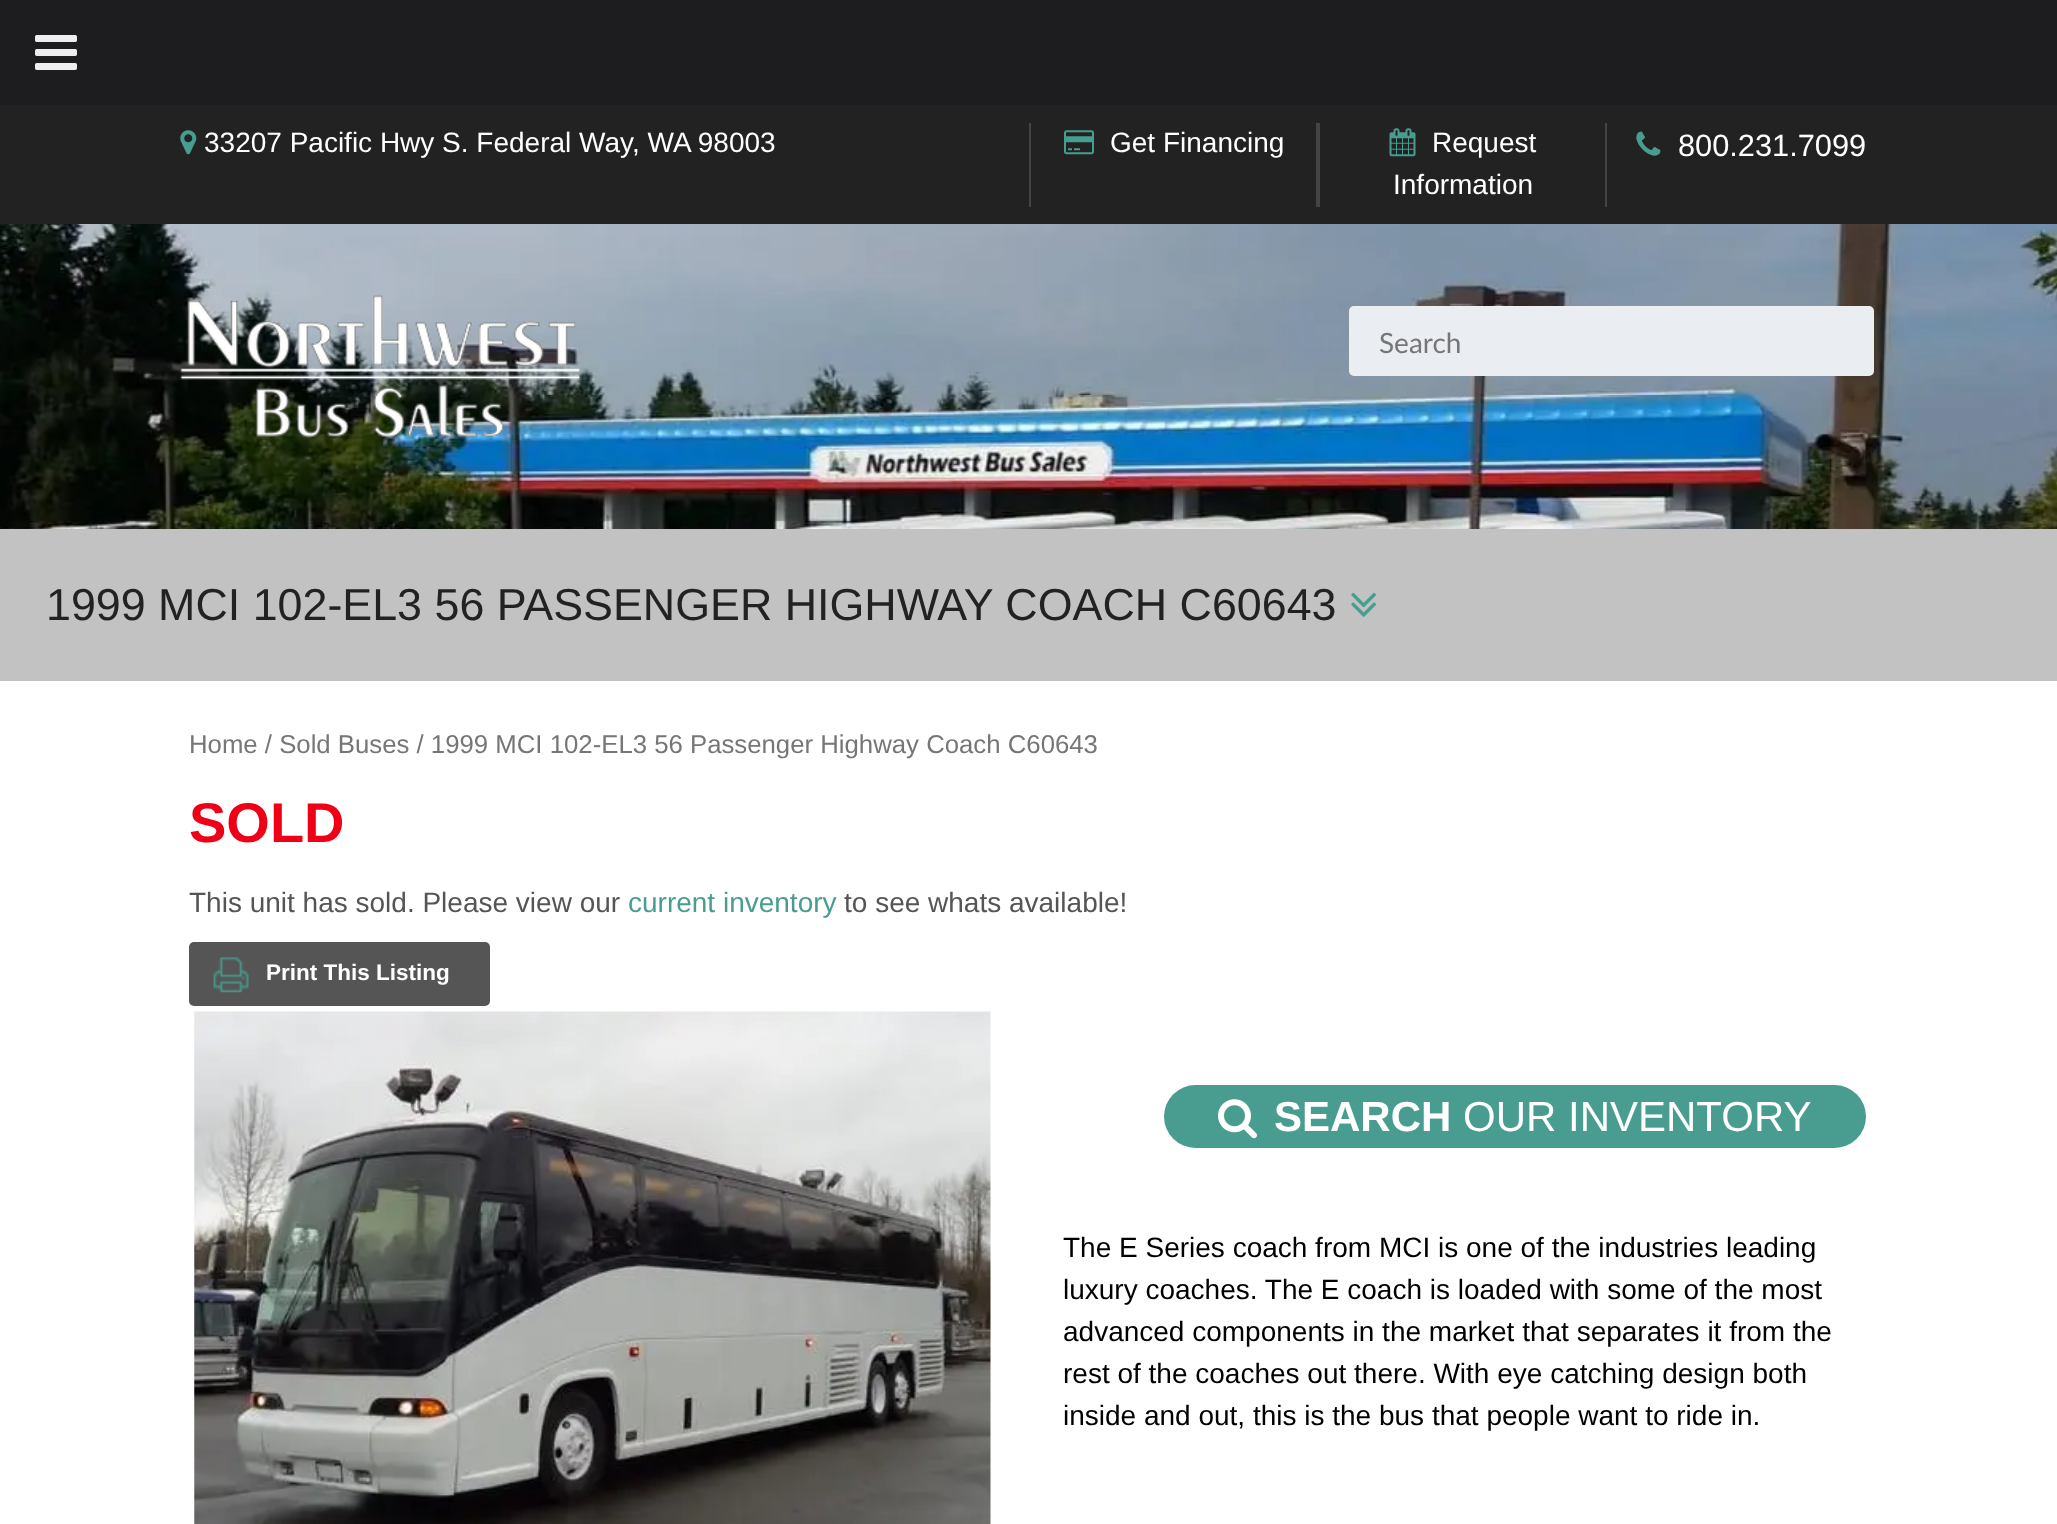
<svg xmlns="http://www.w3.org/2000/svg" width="2057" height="1524">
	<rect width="100%" height="100%" fill="#FFFFFF" />
	<image x="0" y="224" width="2057" height="305" href="assets/img1.png" />
	<rect x="0" y="0" width="2057" height="105" fill="#1D1D20" />
	<image x="35" y="35" width="42" height="35" href="assets/img2.png" />
	<rect x="0" y="105" width="2057" height="119" fill="#222222" />
	<image x="180" y="130" width="17" height="25" href="assets/img3.png" />
	<text x="204" y="152" font-family="Liberation Sans" font-size="28" fill="#FFFFFF">33207 Pacific Hwy S. Federal Way, WA 98003</text>
	<rect x="1316" y="123" width="4" height="84" fill="#444444" />
	<rect x="1029" y="123" width="2" height="84" fill="#444444" />
	<image x="1064" y="130" width="30" height="25" href="assets/img4.png" />
	<text x="1110" y="152" font-family="Liberation Sans" font-size="28" fill="#FFFFFF">Get Financing</text>
	<rect x="1605" y="123" width="2" height="84" fill="#444444" />
	<image x="1389" y="128" width="27" height="29" href="assets/img5.png" />
	<g font-family="Liberation Sans" font-size="28" fill="#FFFFFF">
		<text x="1432" y="152">Request</text>
		<text x="1393" y="194">Information</text>
	</g>
	<image x="1636" y="131" width="25" height="25" href="assets/img6.png" />
	<text x="1678" y="156" font-family="Liberation Sans" font-size="30.75" fill="#FFFFFF">800.231.7099</text>
	<image x="180" y="295" width="400" height="144" href="assets/img7.png" />
	<rect x="1350" y="307" width="523" height="68" rx="4" fill="#EAEDF2" stroke="#EEEEEE" stroke-width="2" />
	<text x="1379" y="353" font-family="Lato" font-size="28" fill="#767676">Search</text>
	<rect x="0" y="529" width="2057" height="152" fill="#C2C2C2" />
	<text x="46" y="620" font-family="Liberation Sans" font-size="44.8" fill="#222222">1999 MCI 102-EL3 56 PASSENGER HIGHWAY COACH C60643</text>
	<image x="1351" y="592" width="26" height="25" href="assets/img8.png" />
	<text x="189" y="753" font-family="Liberation Sans" font-size="25.75" fill="#767676">Home / Sold Buses / 1999 MCI 102-EL3 56 Passenger Highway Coach C60643</text>
	<text x="189" y="842" font-family="Liberation Sans" font-size="56" font-weight="700" fill="#EF0017">SOLD</text>
	<text x="189" y="912" font-family="Liberation Sans" font-size="28" fill="#555555">This unit has sold. Please view our</text>
	<text x="628" y="912" font-family="Liberation Sans" font-size="28" fill="#499D90">current inventory</text>
	<text x="844" y="912" font-family="Liberation Sans" font-size="28" fill="#555555">to see whats available!</text>
	<rect x="189" y="942" width="301" height="64" rx="5" fill="#555555" />
	<image x="213" y="957" width="36" height="36" href="assets/img9.png" />
	<text x="266" y="980" font-family="Liberation Sans" font-size="22.5" font-weight="700" fill="#FFFFFF">Print This Listing</text>
	<image x="194" y="1011" width="797" height="513" href="assets/img10.png" />
	<rect x="1164" y="1085" width="702" height="63" rx="31.5" fill="#499D90" />
	<image x="1218" y="1099" width="39" height="40" href="assets/img11.png" />
	<text x="1274" y="1131" font-family="Liberation Sans" font-size="42" font-weight="700" fill="#FFFFFF">SEARCH</text>
	<text x="1463" y="1131" font-family="Liberation Sans" font-size="42" fill="#FFFFFF">OUR INVENTORY</text>
	<g font-family="Liberation Sans" font-size="28" fill="#000000">
		<text x="1063" y="1257">The E Series coach from MCI is one of the industries leading</text>
		<text x="1063" y="1299">luxury coaches. The E coach is loaded with some of the most</text>
		<text x="1063" y="1341">advanced components in the market that separates it from the</text>
		<text x="1063" y="1383">rest of the coaches out there. With eye catching design both</text>
		<text x="1063" y="1425">inside and out, this is the bus that people want to ride in.</text>
	</g>
</svg>
